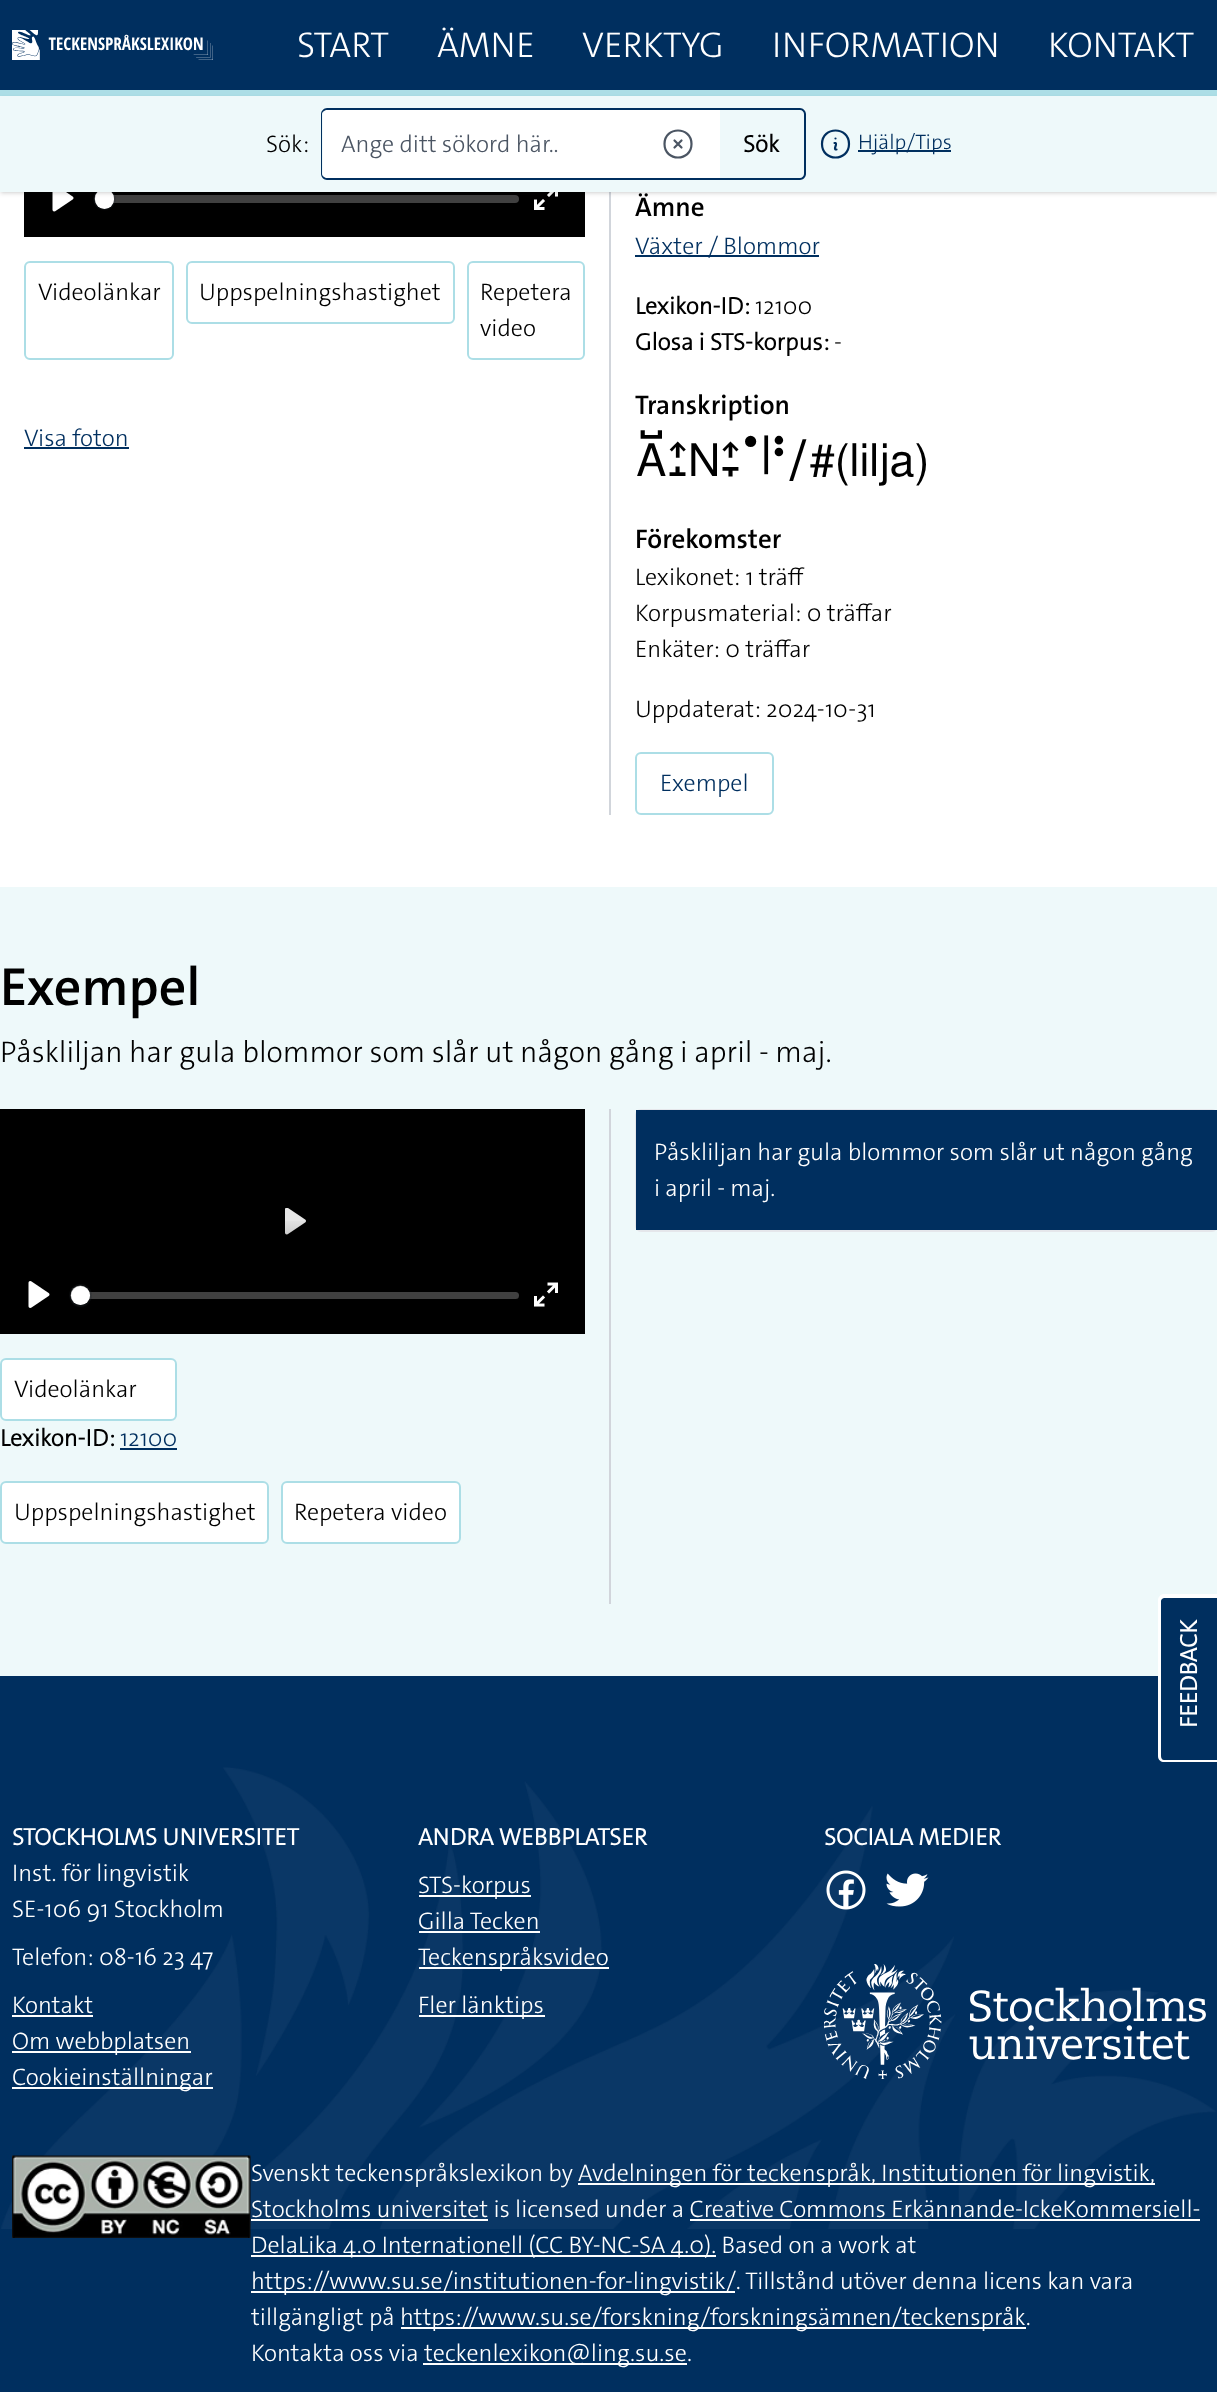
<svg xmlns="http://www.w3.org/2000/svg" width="1217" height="2392">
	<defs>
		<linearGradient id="g1" gradientUnits="userSpaceOnUse" x1="305" y1="121" x2="305" y2="237"><stop offset="0" stop-color="#000000" stop-opacity="0" /><stop offset="1" stop-color="#000000" stop-opacity="0.75" /></linearGradient>
		<linearGradient id="g2" gradientUnits="userSpaceOnUse" x1="293" y1="1218" x2="293" y2="1334"><stop offset="0" stop-color="#000000" stop-opacity="0" /><stop offset="1" stop-color="#000000" stop-opacity="0.75" /></linearGradient>
	</defs>
	<rect width="100%" height="100%" fill="#FFFFFF" />
	<rect x="0" y="0" width="1217" height="90" fill="#002F5F" />
	<rect x="0" y="90" width="1217" height="6" fill="#ACDEE6" />
	<image x="12" y="30" width="201" height="30" href="assets/img1.png" />
	<g font-family="'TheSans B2'" font-size="36" font-weight="300" fill="#FFFFFF">
		<text x="297" y="57">START</text>
		<text x="437" y="57">ÄMNE</text>
		<text x="582" y="57">VERKTYG</text>
		<text x="772" y="57">INFORMATION</text>
		<text x="1048" y="57">KONTAKT</text>
	</g>
	<rect x="24" y="192" width="561" height="45" fill="#000000" />
	<image x="93" y="192" width="22" height="18" href="assets/img4.png" />
	<rect x="93" y="192" width="22" height="18" fill="url(#g1)" />
	<image x="52" y="192" width="22" height="20" href="assets/img2.png" />
	<rect x="95" y="195" width="424" height="8" rx="4" fill="#FFFFFF" fill-opacity="0.25" />
	<rect x="94" y="189" width="21" height="20" rx="10" fill="none" stroke="#23282F" stroke-opacity="0.2" stroke-width="2" />
	<rect x="95" y="191" width="19" height="19" rx="9.5" fill="#23282F" fill-opacity="0.15" filter="blur(1px)" />
	<rect x="95" y="189" width="19" height="20" rx="9.5" fill="#FFFFFF" />
	<image x="534" y="192" width="24" height="18" href="assets/img3.png" />
	<rect x="609" y="192" width="2" height="623" fill="#D1D5DB" />
	<rect x="2" y="99" width="1215" height="93" fill="#000000" fill-opacity="0.1" filter="blur(1.5px)" />
	<rect x="0" y="98" width="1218" height="96" fill="#000000" fill-opacity="0.1" filter="blur(2px)" />
	<rect x="0" y="96" width="1217" height="96" fill="#EEF9FA" />
	<text x="266" y="152" font-family="'TheSans B2'" font-size="24" font-weight="300" fill="#000000">Sök:</text>
	<path d="M328 110H720V179H328C325 179 323 177 323 174V115C323 112 325 110 328 110Z" fill="#FFFFFF" />
	<path d="M327 108H720V180H327C324 180 321 177 321 174V114C321 111 324 108 327 108ZM327 110H720V178H327C325 178 322 176 322 174V114C322 112 325 110 327 110Z" fill="#002F5F" fill-rule="evenodd" />
	<text x="341" y="152" font-family="'TheSans B2'" font-size="24" font-weight="300" fill="#4B5563">Ange ditt sökord här..</text>
	<path d="M674.5 140.5L681.5 147.5M681.5 140.5L674.5 147.5M691.5 144C691.5 162 664.5 162 664.5 144C664.5 126 691.5 126 691.5 144Z" fill="none" stroke="#4B5563" stroke-width="2.2" stroke-linecap="round" stroke-linejoin="round" />
	<path d="M720 108H800C803 108 806 111 806 114V174C806 177 803 180 800 180H720ZM720 110H800C802 110 804 112 804 114V174C804 176 802 178 800 178H720Z" fill="#002F5F" fill-rule="evenodd" />
	<text x="743" y="152" font-family="'TheSans B2'" font-size="24" font-weight="700" fill="#000000">Sök</text>
	<path d="M834.5 143H835.5C837.5 144 833.5 148.5 835.5 149.5H836.5M849 144C849 162 822 162 822 144C822 126 849 126 849 144ZM835.5 138.5H835.5Z" fill="none" stroke="#002F5F" stroke-width="2.2" stroke-linecap="round" stroke-linejoin="round" />
	<rect x="858" y="150" width="93" height="2" fill="#002F5F" />
	<text x="858" y="149" font-family="'TheSans B2'" font-size="21" font-weight="300" fill="#002F5F">Hjälp/Tips</text>
	<rect x="25" y="262" width="148" height="97" rx="5" fill="none" stroke="#ACDEE6" stroke-width="2" />
	<text x="38" y="300" font-family="'TheSans B2'" font-size="24" font-weight="300" fill="#000000">Videolänkar</text>
	<rect x="187" y="262" width="267" height="61" rx="5" fill="none" stroke="#ACDEE6" stroke-width="2" />
	<text x="199" y="300" font-family="'TheSans B2'" font-size="24" font-weight="300" fill="#000000">Uppspelningshastighet</text>
	<rect x="468" y="262" width="116" height="97" rx="5" fill="none" stroke="#ACDEE6" stroke-width="2" />
	<g font-family="'TheSans B2'" font-size="24" font-weight="300" fill="#000000">
		<text x="480" y="300">Repetera</text>
		<text x="480" y="336">video</text>
	</g>
	<text x="24" y="446" font-family="'TheSans B2'" font-size="24" font-weight="300" fill="#002F5F">Visa foton</text>
	<rect x="24" y="447" width="105" height="2" fill="#002F5F" />
	<text x="635" y="216" font-family="'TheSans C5'" font-size="27" font-weight="600" fill="#000000">Ämne</text>
	<rect x="635" y="255" width="184" height="2" fill="#002F5F" />
	<text x="635" y="254" font-family="'TheSans B2'" font-size="24" font-weight="300" fill="#002F5F">Växter / Blommor</text>
	<text x="635" y="314" font-family="'TheSans B2'" font-size="24" font-weight="700" fill="#000000">Lexikon-ID:</text>
	<text x="755" y="314" font-family="'TheSans B2'" font-size="24" font-weight="300" fill="#000000">12100</text>
	<text x="635" y="350" font-family="'TheSans B2'" font-size="24" font-weight="700" fill="#000000">Glosa i STS-korpus:</text>
	<text x="834" y="350" font-family="'TheSans B2'" font-size="24" font-weight="300" fill="#000000">-</text>
	<text x="635" y="414" font-family="'TheSans C5'" font-size="27" font-weight="600" fill="#000000">Transkription</text>
	<text x="635" y="476" font-family="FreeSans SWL" font-size="45" fill="#000000">􌤤􌤹􌤴􌤸􌥌􌤴􌥙􌤟􌥼􌥻􌥠#(lilja)</text>
	<text x="635" y="548" font-family="'TheSans C5'" font-size="27" font-weight="600" fill="#000000">Förekomster</text>
	<g font-family="'TheSans B2'" font-size="24" font-weight="300" fill="#000000">
		<text x="635" y="585">Lexikonet: 1 träff</text>
		<text x="635" y="621">Korpusmaterial: 0 träffar</text>
		<text x="635" y="657">Enkäter: 0 träffar</text>
		<text x="635" y="717">Uppdaterat: 2024-10-31</text>
	</g>
	<rect x="636" y="753" width="137" height="61" rx="5" fill="none" stroke="#ACDEE6" stroke-width="2" />
	<text x="660" y="791" font-family="'TheSans B2'" font-size="24" font-weight="300" fill="#002F5F">Exempel</text>
	<rect x="0" y="887" width="1217" height="789" fill="#EEF9FA" />
	<text x="0" y="1005" font-family="'TheSans C5'" font-size="54" font-weight="600" fill="#000000">Exempel</text>
	<text x="0" y="1062" font-family="'TheSans B2'" font-size="30" font-weight="300" fill="#000000">Påskliljan har gula blommor som slår ut någon gång i april - maj.</text>
	<rect x="609" y="1109" width="2" height="495" fill="#D1D5DB" />
	<rect x="636" y="1110" width="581" height="121" rx="5" fill="none" stroke="#E5E7EB" stroke-width="2" />
	<rect x="636" y="1110" width="581" height="120" fill="#002F5F" />
	<g font-family="'TheSans B2'" font-size="24" font-weight="300" fill="#FFFFFF">
		<text x="654" y="1160">Påskliljan har gula blommor som slår ut någon gång</text>
		<text x="654" y="1196">i april - maj.</text>
	</g>
	<rect x="0" y="1109" width="585" height="225" fill="#000000" />
	<image x="69" y="1284" width="23" height="23" href="assets/img5.png" />
	<image x="285" y="1208" width="21" height="27" href="assets/img6.png" />
	<rect x="69" y="1221" width="237" height="86" fill="url(#g2)" />
	<image x="28" y="1281" width="22" height="27" href="assets/img7.png" />
	<rect x="71" y="1292" width="448" height="7" rx="3.5" fill="#FFFFFF" fill-opacity="0.25" />
	<circle cx="80.5" cy="1295.5" r="10.5" fill="none" stroke="#23282F" stroke-opacity="0.2" stroke-width="2" />
	<rect x="71" y="1287" width="19" height="20" rx="9.5" fill="#23282F" fill-opacity="0.15" filter="blur(1px)" />
	<circle cx="80.5" cy="1295.5" r="9.5" fill="#FFFFFF" />
	<image x="534" y="1282" width="24" height="25" href="assets/img8.png" />
	<rect x="1" y="1359" width="175" height="61" rx="5" fill="#FFFFFF" stroke="#ACDEE6" stroke-width="2" />
	<text x="14" y="1397" font-family="'TheSans B2'" font-size="24" font-weight="300" fill="#000000">Videolänkar</text>
	<text x="0" y="1446" font-family="'TheSans B2'" font-size="24" font-weight="700" fill="#000000">Lexikon-ID:</text>
	<text x="120" y="1446" font-family="'TheSans B2'" font-size="24" font-weight="300" fill="#002F5F">12100</text>
	<rect x="120" y="1448" width="57" height="2" fill="#002F5F" />
	<rect x="1" y="1482" width="267" height="61" rx="5" fill="#FFFFFF" stroke="#ACDEE6" stroke-width="2" />
	<text x="14" y="1520" font-family="'TheSans B2'" font-size="24" font-weight="300" fill="#000000">Uppspelningshastighet</text>
	<rect x="282" y="1482" width="178" height="61" rx="5" fill="#FFFFFF" stroke="#ACDEE6" stroke-width="2" />
	<text x="294" y="1520" font-family="'TheSans B2'" font-size="24" font-weight="300" fill="#000000">Repetera video</text>
	<rect x="0" y="1676" width="1217" height="716" fill="#002F5F" />
	<path d="M1164 1598H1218V1760H1164C1162.5 1760 1161 1758.5 1161 1757V1601C1161 1599.5 1162.5 1598 1164 1598Z" fill="#002F5F" />
	<path d="M1164 1594H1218V1762H1164C1161 1762 1158 1760 1158 1756V1600C1158 1597 1161 1594 1164 1594ZM1164 1598H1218V1760H1164C1162 1760 1161 1758 1161 1756V1600C1161 1599 1162 1598 1164 1598Z" fill="#FFFFFF" fill-rule="evenodd" />
	<text x="1197" y="1728" transform="rotate(-90 1197 1728)" font-family="'TheSans B2'" font-size="24" font-weight="700" fill="#FFFFFF">FEEDBACK</text>
	<image x="1" y="1767" width="1215" height="462" href="assets/img9.png" />
	<text x="12" y="1845" font-family="'TheSans B2'" font-size="24" font-weight="700" fill="#FFFFFF">STOCKHOLMS UNIVERSITET</text>
	<g font-family="'TheSans B2'" font-size="24" font-weight="300" fill="#FFFFFF">
		<text x="12" y="1881">Inst. för lingvistik</text>
		<text x="12" y="1917">SE-106 91 Stockholm</text>
		<text x="12" y="1965">Telefon: 08-16 23 47</text>
		<text x="12" y="2013">Kontakt</text>
	</g>
	<rect x="12" y="2015" width="81" height="2" fill="#FFFFFF" />
	<rect x="12" y="2051" width="179" height="2" fill="#FFFFFF" />
	<text x="12" y="2049" font-family="'TheSans B2'" font-size="24" font-weight="300" fill="#FFFFFF">Om webbplatsen</text>
	<rect x="12" y="2087" width="201" height="2" fill="#FFFFFF" />
	<text x="12" y="2085" font-family="'TheSans B2'" font-size="24" font-weight="300" fill="#FFFFFF">Cookieinställningar</text>
	<text x="418" y="1845" font-family="'TheSans B2'" font-size="24" font-weight="700" fill="#FFFFFF">ANDRA WEBBPLATSER</text>
	<rect x="419" y="1895" width="112" height="2" fill="#FFFFFF" />
	<g font-family="'TheSans B2'" font-size="24" font-weight="300" fill="#FFFFFF">
		<text x="418" y="1893">STS-korpus</text>
		<text x="418" y="1929">Gilla Tecken</text>
	</g>
	<rect x="419" y="1931" width="121" height="2" fill="#FFFFFF" />
	<rect x="419" y="1967" width="190" height="2" fill="#FFFFFF" />
	<text x="418" y="1965" font-family="'TheSans B2'" font-size="24" font-weight="300" fill="#FFFFFF">Teckenspråksvideo</text>
	<rect x="419" y="2015" width="126" height="2" fill="#FFFFFF" />
	<text x="418" y="2013" font-family="'TheSans B2'" font-size="24" font-weight="300" fill="#FFFFFF">Fler länktips</text>
	<text x="824" y="1845" font-family="'TheSans B2'" font-size="24" font-weight="700" fill="#FFFFFF">SOCIALA MEDIER</text>
	<image x="826" y="1870" width="40" height="40" href="assets/img10.png" />
	<image x="886" y="1873" width="43" height="34" href="assets/img11.png" />
	<image x="824" y="1964" width="382" height="115" href="assets/img12.png" />
	<image x="12" y="2155" width="239" height="83" href="assets/img13.png" />
	<text x="251" y="2181" font-family="'TheSans B2'" font-size="24" font-weight="300" fill="#FFFFFF">Svenskt teckenspråkslexikon by</text>
	<rect x="578" y="2183" width="577" height="2" fill="#FFFFFF" />
	<g font-family="'TheSans B2'" font-size="24" font-weight="300" fill="#FFFFFF">
		<text x="578" y="2181">Avdelningen för teckenspråk, Institutionen för lingvistik,</text>
		<text x="251" y="2217">Stockholms universitet is licensed under a Creative Commons Erkännande-IckeKommersiell-</text>
	</g>
	<rect x="251" y="2219" width="237" height="2" fill="#FFFFFF" />
	<rect x="251" y="2255" width="465" height="2" fill="#FFFFFF" />
	<text x="251" y="2253" font-family="'TheSans B2'" font-size="24" font-weight="300" fill="#FFFFFF">DelaLika 4.0 Internationell (CC BY-NC-SA 4.0). Based on a work at</text>
	<rect x="690" y="2219" width="510" height="2" fill="#FFFFFF" />
	<rect x="251" y="2291" width="484" height="2" fill="#FFFFFF" />
	<g font-family="'TheSans B2'" font-size="24" font-weight="300" fill="#FFFFFF">
		<text x="251" y="2289">https://www.su.se/institutionen-for-lingvistik/. Tillstånd utöver denna licens kan vara</text>
		<text x="251" y="2325">tillgängligt på</text>
	</g>
	<rect x="401" y="2327" width="625" height="2" fill="#FFFFFF" />
	<g font-family="'TheSans B2'" font-size="24" font-weight="300" fill="#FFFFFF">
		<text x="400" y="2325">https://www.su.se/forskning/forskningsämnen/teckenspråk.</text>
		<text x="251" y="2361">Kontakta oss via</text>
	</g>
	<rect x="423" y="2363" width="264" height="2" fill="#FFFFFF" />
	<text x="424" y="2361" font-family="'TheSans B2'" font-size="24" font-weight="300" fill="#FFFFFF">teckenlexikon@ling.su.se.</text>
</svg>
